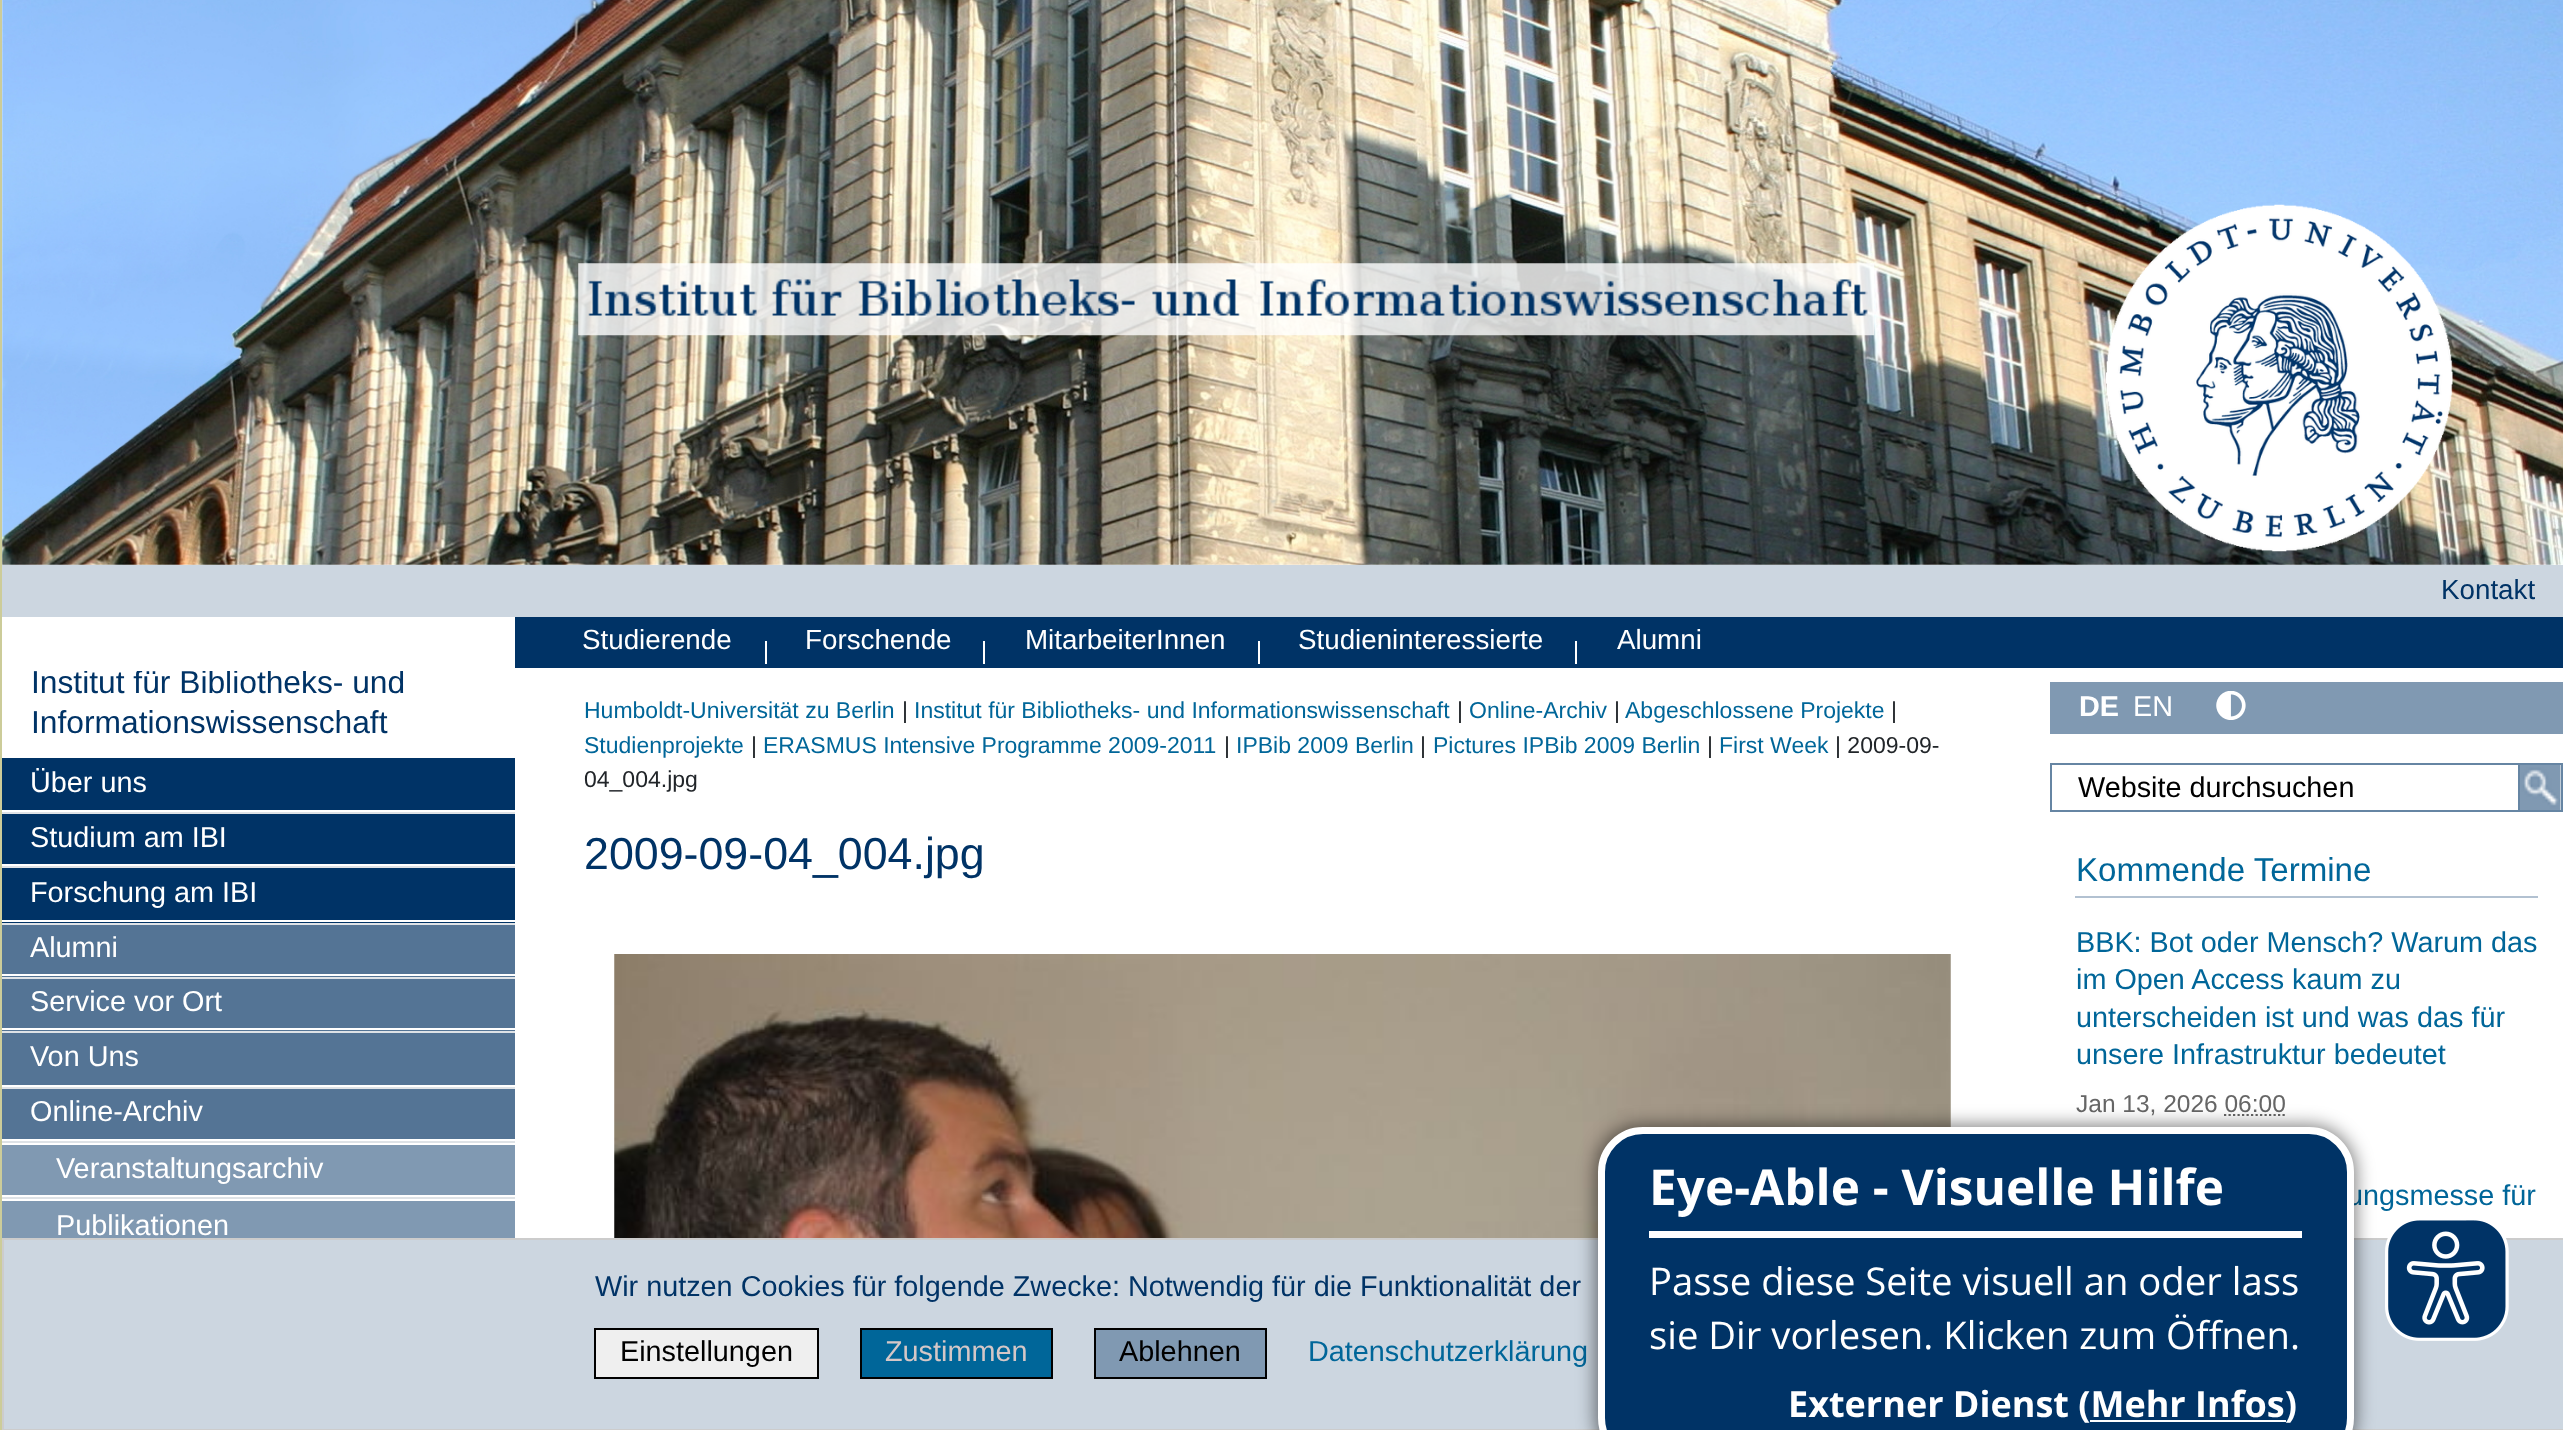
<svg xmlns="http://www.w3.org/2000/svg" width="2563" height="1430">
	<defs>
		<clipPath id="clip1"><rect x="2" y="671" width="513" height="87" /></clipPath>
	</defs>
	<rect width="100%" height="100%" fill="#FFFFFF" />
	<image x="2" y="0" width="2561" height="565" href="assets/img1.png" />
	<image x="578" y="263" width="1297" height="73" href="assets/img2.png" />
	<image x="2106" y="204" width="347" height="348" href="assets/img3.png" />
	<rect x="0" y="0" width="2" height="1430" fill="#CCCC99" />
	<g clip-path="url(#clip1)">
		<text x="31" y="693" font-family="Liberation Sans" font-size="31.75" fill="#003366">Institut für Bibliotheks- und</text>
	</g>
	<text x="31" y="733" font-family="Liberation Sans" font-size="31.75" fill="#003366">Informationswissenschaft</text>
	<rect x="2" y="758" width="513" height="52" fill="#003366" />
	<text x="30" y="792" font-family="Liberation Sans" font-size="28.8" fill="#FFFFFF">Über uns</text>
	<rect x="2" y="814" width="513" height="50" fill="#003366" />
	<rect x="2" y="812" width="513" height="2" fill="#DEE2E6" />
	<text x="30" y="847" font-family="Liberation Sans" font-size="28.8" fill="#FFFFFF">Studium am IBI</text>
	<rect x="2" y="868" width="513" height="55" fill="#003366" />
	<rect x="2" y="866" width="513" height="2" fill="#DEE2E6" />
	<rect x="2" y="920" width="513" height="2" fill="#FFFFFF" />
	<text x="30" y="902" font-family="Liberation Sans" font-size="28.8" fill="#FFFFFF">Forschung am IBI</text>
	<rect x="2" y="925" width="513" height="52" fill="#547495" />
	<rect x="2" y="923" width="513" height="2" fill="#DEE2E6" />
	<rect x="2" y="974" width="513" height="2" fill="#FFFFFF" />
	<text x="30" y="957" font-family="Liberation Sans" font-size="28.8" fill="#FFFFFF">Alumni</text>
	<rect x="2" y="979" width="513" height="52" fill="#547495" />
	<rect x="2" y="977" width="513" height="2" fill="#DEE2E6" />
	<rect x="2" y="1028" width="513" height="2" fill="#FFFFFF" />
	<text x="30" y="1011" font-family="Liberation Sans" font-size="28.8" fill="#FFFFFF">Service vor Ort</text>
	<rect x="2" y="1033" width="513" height="52" fill="#547495" />
	<rect x="2" y="1031" width="513" height="2" fill="#DEE2E6" />
	<text x="30" y="1066" font-family="Liberation Sans" font-size="28.8" fill="#FFFFFF">Von Uns</text>
	<rect x="2" y="1089" width="513" height="50" fill="#547495" />
	<rect x="2" y="1087" width="513" height="2" fill="#DEE2E6" />
	<text x="30" y="1121" font-family="Liberation Sans" font-size="28.8" fill="#FFFFFF">Online-Archiv</text>
	<rect x="2" y="1145" width="513" height="50" fill="#8099B2" />
	<rect x="2" y="1141" width="513" height="2" fill="#DEE2E6" />
	<text x="56" y="1178" font-family="Liberation Sans" font-size="28.8" fill="#FFFFFF">Veranstaltungsarchiv</text>
	<rect x="2" y="1201" width="513" height="37" fill="#8099B2" />
	<rect x="2" y="1197" width="513" height="2" fill="#DEE2E6" />
	<text x="56" y="1235" font-family="Liberation Sans" font-size="28.8" fill="#FFFFFF">Publikationen</text>
	<rect x="2" y="565" width="2561" height="52" fill="#CCD6E0" />
	<text x="2441" y="599" font-family="Liberation Sans" font-size="27.75" fill="#003366">Kontakt</text>
	<rect x="515" y="617" width="2048" height="51" fill="#003366" />
	<text x="582" y="649" font-family="Liberation Sans" font-size="27.75" fill="#FFFFFF">Studierende</text>
	<rect x="765" y="641" width="2" height="23" fill="#FFFFFF" />
	<text x="805" y="649" font-family="Liberation Sans" font-size="27.75" fill="#FFFFFF">Forschende</text>
	<rect x="983" y="641" width="2" height="23" fill="#FFFFFF" />
	<text x="1025" y="649" font-family="Liberation Sans" font-size="27.75" fill="#FFFFFF">MitarbeiterInnen</text>
	<rect x="1258" y="641" width="2" height="23" fill="#FFFFFF" />
	<text x="1298" y="649" font-family="Liberation Sans" font-size="27.75" fill="#FFFFFF">Studieninteressierte</text>
	<rect x="1575" y="641" width="2" height="23" fill="#FFFFFF" />
	<text x="1617" y="649" font-family="Liberation Sans" font-size="27.75" fill="#FFFFFF">Alumni</text>
	<text x="584" y="718" font-family="Liberation Sans" font-size="23" fill="#006699">Humboldt-Universität zu Berlin</text>
	<text x="902" y="718" font-family="Liberation Sans" font-size="23" fill="#212529">|</text>
	<text x="914" y="718" font-family="Liberation Sans" font-size="23" fill="#006699">Institut für Bibliotheks- und Informationswissenschaft</text>
	<text x="1457" y="718" font-family="Liberation Sans" font-size="23" fill="#212529">|</text>
	<text x="1469" y="718" font-family="Liberation Sans" font-size="23" fill="#006699">Online-Archiv</text>
	<text x="1614" y="718" font-family="Liberation Sans" font-size="23" fill="#212529">|</text>
	<text x="1625" y="718" font-family="Liberation Sans" font-size="23" fill="#006699">Abgeschlossene Projekte</text>
	<text x="1891" y="718" font-family="Liberation Sans" font-size="23" fill="#212529">|</text>
	<text x="584" y="753" font-family="Liberation Sans" font-size="23" fill="#006699">Studienprojekte</text>
	<text x="751" y="753" font-family="Liberation Sans" font-size="23" fill="#212529">|</text>
	<text x="763" y="753" font-family="Liberation Sans" font-size="23" fill="#006699">ERASMUS Intensive Programme 2009-2011</text>
	<text x="1224" y="753" font-family="Liberation Sans" font-size="23" fill="#212529">|</text>
	<text x="1236" y="753" font-family="Liberation Sans" font-size="23" fill="#006699">IPBib 2009 Berlin</text>
	<text x="1420" y="753" font-family="Liberation Sans" font-size="23" fill="#212529">|</text>
	<text x="1433" y="753" font-family="Liberation Sans" font-size="23" fill="#006699">Pictures IPBib 2009 Berlin</text>
	<text x="1707" y="753" font-family="Liberation Sans" font-size="23" fill="#212529">|</text>
	<text x="1719" y="753" font-family="Liberation Sans" font-size="23" fill="#006699">First Week</text>
	<g font-family="Liberation Sans" font-size="23" fill="#212529">
		<text x="1835" y="753">| 2009-09-</text>
		<text x="584" y="787">04_004.jpg</text>
	</g>
	<text x="584" y="869" font-family="Liberation Sans" font-size="44.75" fill="#003366">2009-09-04_004.jpg</text>
	<image x="614" y="954" width="1337" height="284" href="assets/img4.png" />
	<rect x="2050" y="682" width="513" height="52" fill="#8099B2" />
	<text x="2079" y="716" font-family="Liberation Sans" font-size="28.8" font-weight="700" fill="#FFFFFF">DE</text>
	<text x="2133" y="716" font-family="Liberation Sans" font-size="28.8" fill="#FFFFFF">EN</text>
	<image x="2216" y="691" width="30" height="29" href="assets/img5.png" />
	<rect x="2051" y="764" width="511" height="47" fill="none" stroke="#6685A3" stroke-width="2" />
	<text x="2078" y="797" font-family="Liberation Sans" font-size="28.8" fill="#000000">Website durchsuchen</text>
	<rect x="2519" y="764" width="43" height="47" fill="none" stroke="#6685A3" stroke-width="2" />
	<image x="2520" y="765" width="41" height="45" href="assets/img6.png" />
	<rect x="2075" y="896" width="463" height="2" fill="#B2C1D1" />
	<text x="2076" y="881" font-family="Liberation Sans" font-size="33.1" fill="#006699">Kommende Termine</text>
	<g font-family="Liberation Sans" font-size="28.8" fill="#006699">
		<text x="2076" y="952">BBK: Bot oder Mensch? Warum das</text>
		<text x="2076" y="989">im Open Access kaum zu</text>
		<text x="2076" y="1027">unterscheiden ist und was das für</text>
		<text x="2076" y="1064">unsere Infrastruktur bedeutet</text>
	</g>
	<text x="2076" y="1112" font-family="Liberation Sans" font-size="24.5" fill="#666666">Jan 13, 2026 06:00</text>
	<path d="M2224 1115H2285" fill="none" stroke="#666666" stroke-width="2.2" stroke-dasharray="2.25 2.25" />
	<text x="2347" y="1205" font-family="Liberation Sans" font-size="28.8" fill="#006699">ungsmesse für</text>
	<rect x="3" y="1239" width="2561" height="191" fill="#CCD6E0" stroke="#CCCCCC" stroke-width="2" />
	<text x="595" y="1296" font-family="Liberation Sans" font-size="28.8" fill="#003366">Wir nutzen Cookies für folgende Zwecke: Notwendig für die Funktionalität der</text>
	<rect x="595" y="1329" width="223" height="49" fill="#EFEFEF" stroke="#000000" stroke-width="2" />
	<text x="620" y="1361" font-family="Liberation Sans" font-size="28.8" fill="#000000">Einstellungen</text>
	<rect x="861" y="1329" width="191" height="49" fill="#006699" stroke="#000000" stroke-width="2" />
	<text x="885" y="1361" font-family="Liberation Sans" font-size="28.8" fill="#D5C7C7">Zustimmen</text>
	<rect x="1095" y="1329" width="171" height="49" fill="#8099B2" stroke="#000000" stroke-width="2" />
	<text x="1119" y="1361" font-family="Liberation Sans" font-size="28.8" fill="#000000">Ablehnen</text>
	<text x="1308" y="1361" font-family="Liberation Sans" font-size="28.8" fill="#006699">Datenschutzerklärung</text>
	<rect x="1595" y="1125" width="761" height="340" rx="47" fill="#000000" fill-opacity="0.5" filter="blur(9px)" />
	<rect x="1601.5" y="1130.5" width="749" height="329" rx="41.5" fill="#003366" stroke="#FFFFFF" stroke-width="7" />
	<rect x="1649" y="1231" width="653" height="7" fill="#FFFFFF" />
	<text x="1649" y="1205" font-family="Open Sans" font-size="49.5" font-weight="700" fill="#FFFFFF">Eye-Able - Visuelle Hilfe</text>
	<g font-family="Open Sans" font-size="38.25" fill="#FFFFFF">
		<text x="1649" y="1295">Passe diese Seite visuell an oder lass</text>
		<text x="1649" y="1349">sie Dir vorlesen. Klicken zum Öffnen.</text>
	</g>
	<text x="1788" y="1417" font-family="Open Sans" font-size="36" font-weight="700" fill="#FFFFFF">Externer Dienst (Mehr Infos)</text>
	<rect x="2090" y="1420" width="196" height="2" fill="#FFFFFF" />
	<image x="2385" y="1220" width="124" height="121" href="assets/img7.png" />
</svg>
